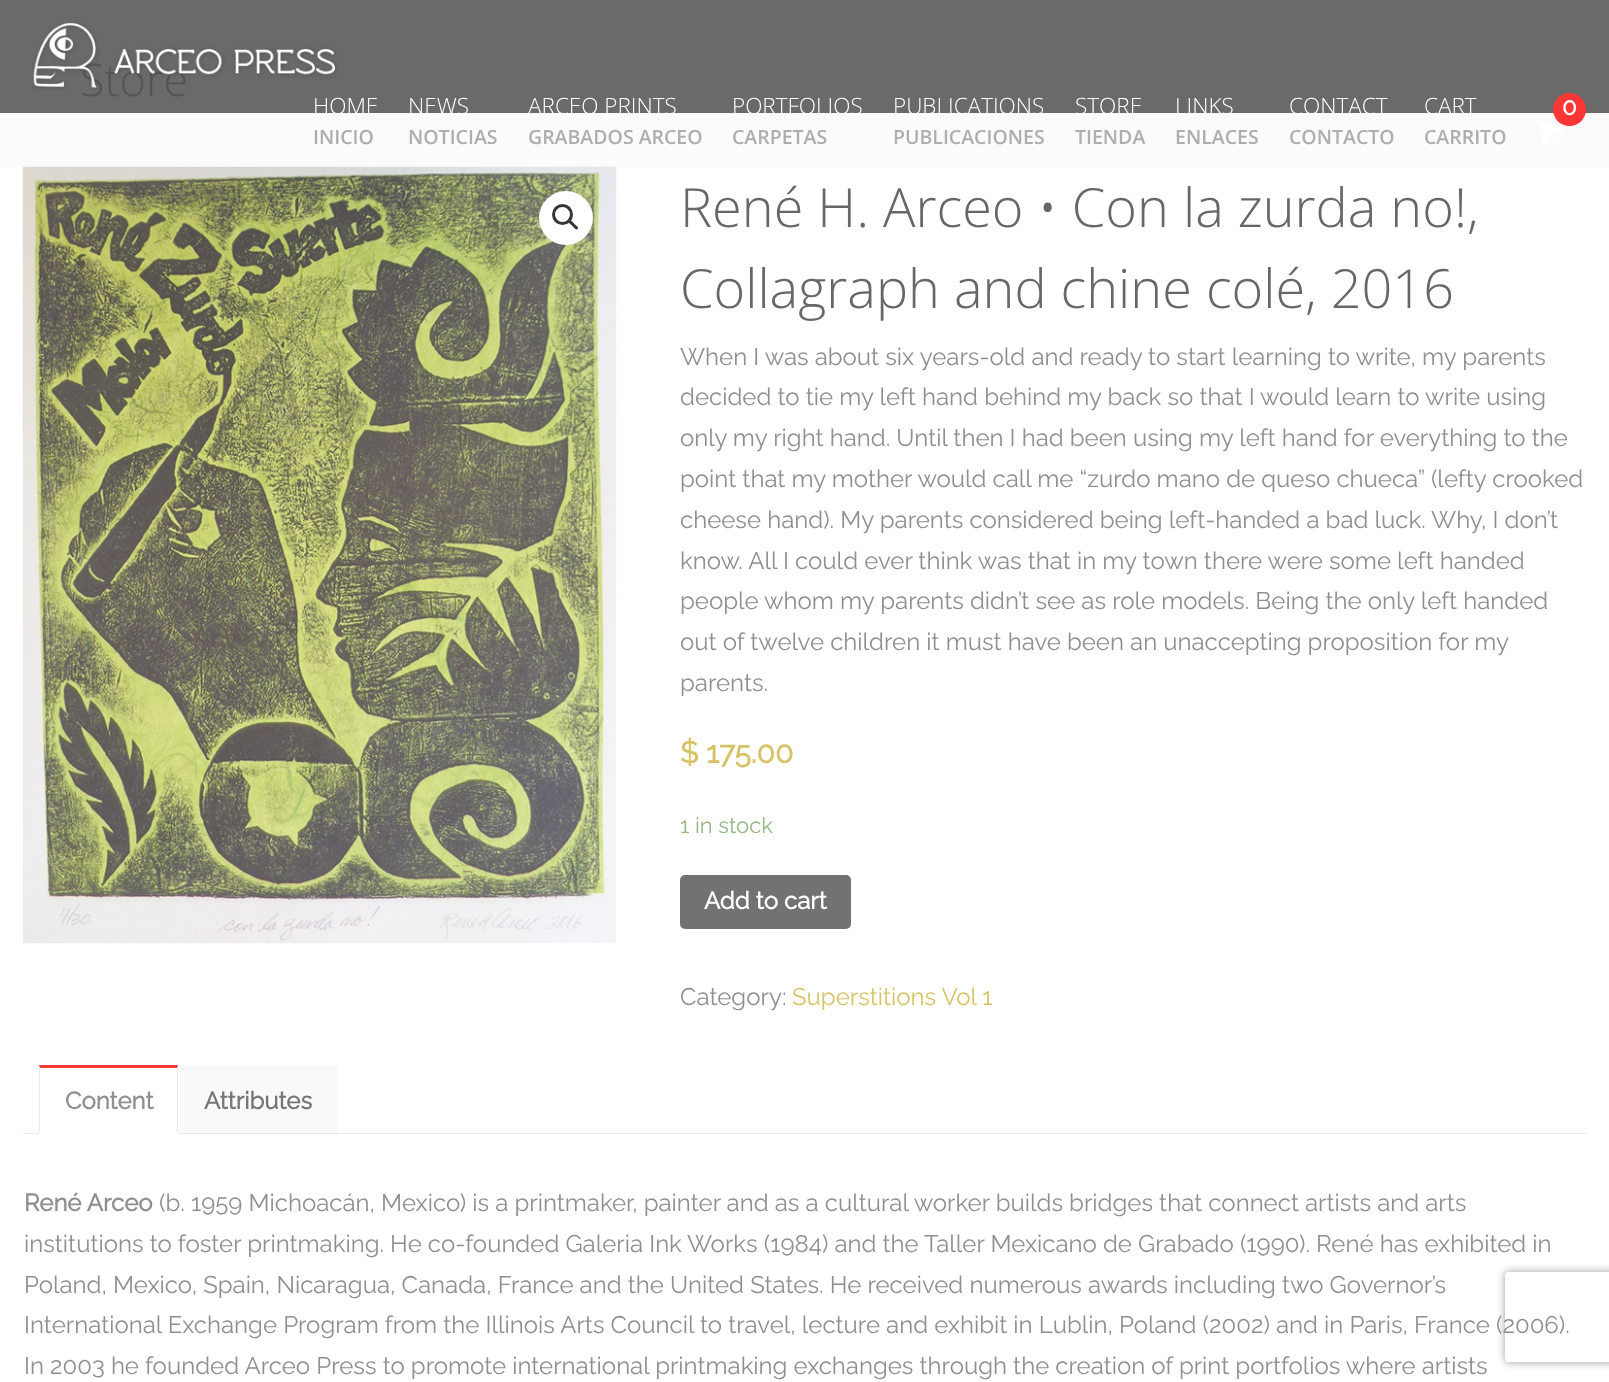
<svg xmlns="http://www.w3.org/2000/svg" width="1609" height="1382">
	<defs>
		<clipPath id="clip1"><path d="M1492 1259H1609V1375H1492ZM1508 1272H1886C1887.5 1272 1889 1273.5 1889 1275V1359C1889 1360.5 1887.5 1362 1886 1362H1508C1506.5 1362 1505 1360.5 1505 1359V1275C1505 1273.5 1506.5 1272 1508 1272Z" clip-rule="evenodd" /></clipPath>
	</defs>
	<rect width="100%" height="100%" fill="#FFFFFF" />
	<rect x="23" y="1133" width="1564" height="1" fill="#EBEBEB" />
	<rect x="0" y="113" width="1609" height="54" fill="#FBFBFB" />
	<rect x="0" y="0" width="1609" height="113" fill="#6A6A6A" />
	<text x="80" y="96" font-family="Open Sans" font-size="45" font-weight="300" fill="#545454">Store</text>
	<image x="32" y="22" width="306" height="68" href="assets/img1.png" />
	<text x="313" y="114" font-family="Open Sans" font-size="22.5" font-weight="300" fill="#FFFFFF">HOME</text>
	<text x="313" y="144" font-family="Open Sans" font-size="19.5" font-weight="600" fill="#AEAEAE">INICIO</text>
	<text x="408" y="114" font-family="Open Sans" font-size="22.5" font-weight="300" fill="#FFFFFF">NEWS</text>
	<text x="408" y="144" font-family="Open Sans" font-size="19.5" font-weight="600" fill="#AEAEAE">NOTICIAS</text>
	<text x="528" y="114" font-family="Open Sans" font-size="22.5" font-weight="300" fill="#FFFFFF">ARCEO PRINTS</text>
	<text x="528" y="144" font-family="Open Sans" font-size="19.5" font-weight="600" fill="#AEAEAE">GRABADOS ARCEO</text>
	<text x="732" y="114" font-family="Open Sans" font-size="22.5" font-weight="300" fill="#FFFFFF">PORTFOLIOS</text>
	<text x="732" y="144" font-family="Open Sans" font-size="19.5" font-weight="600" fill="#AEAEAE">CARPETAS</text>
	<text x="893" y="114" font-family="Open Sans" font-size="22.5" font-weight="300" fill="#FFFFFF">PUBLICATIONS</text>
	<text x="893" y="144" font-family="Open Sans" font-size="19.5" font-weight="600" fill="#AEAEAE">PUBLICACIONES</text>
	<text x="1075" y="114" font-family="Open Sans" font-size="22.5" font-weight="300" fill="#FFFFFF">STORE</text>
	<text x="1075" y="144" font-family="Open Sans" font-size="19.5" font-weight="600" fill="#AEAEAE">TIENDA</text>
	<text x="1175" y="114" font-family="Open Sans" font-size="22.5" font-weight="300" fill="#FFFFFF">LINKS</text>
	<text x="1175" y="144" font-family="Open Sans" font-size="19.5" font-weight="600" fill="#AEAEAE">ENLACES</text>
	<text x="1289" y="114" font-family="Open Sans" font-size="22.5" font-weight="300" fill="#FFFFFF">CONTACT</text>
	<text x="1289" y="144" font-family="Open Sans" font-size="19.5" font-weight="600" fill="#AEAEAE">CONTACTO</text>
	<text x="1424" y="114" font-family="Open Sans" font-size="22.5" font-weight="300" fill="#FFFFFF">CART</text>
	<text x="1424" y="144" font-family="Open Sans" font-size="19.5" font-weight="600" fill="#AEAEAE">CARRITO</text>
	<image x="1536" y="121" width="28" height="23" href="assets/img2.png" />
	<circle cx="1569.5" cy="109.5" r="16.5" fill="#FF3636" />
	<text x="1562" y="115" font-family="Raleway" font-size="24" font-weight="700" fill="#FFFFFF">0</text>
	<image x="22" y="166" width="595" height="778" href="assets/img3.png" />
	<circle cx="566" cy="218" r="27" fill="#FFFFFF" />
	<circle cx="562.5" cy="214.5" r="9" fill="none" stroke="#363636" stroke-width="3" />
	<path d="M569 221C571 219 573.5 223 574.5 224C575.5 225 579.5 227.5 577.5 229C576 231 573.5 227 572.5 226C571.5 225 567.5 222.5 569 221Z" fill="#363636" />
	<g font-family="Open Sans" font-size="54" font-weight="300" fill="#676767">
		<text x="680" y="227">René H. Arceo • Con la zurda no!,</text>
		<text x="680" y="308">Collagraph and chine colé, 2016</text>
	</g>
	<g font-family="Raleway" font-size="24" font-weight="100" fill="#8F8F8F">
		<text x="680" y="365">When I was about six years-old and ready to start learning to write, my parents</text>
		<text x="680" y="405">decided to tie my left hand behind my back so that I would learn to write using</text>
		<text x="680" y="446">only my right hand. Until then I had been using my left hand for everything to the</text>
		<text x="680" y="487">point that my mother would call me “zurdo mano de queso chueca” (lefty crooked</text>
		<text x="680" y="528">cheese hand). My parents considered being left-handed a bad luck. Why, I don’t</text>
		<text x="680" y="569">know. All I could ever think was that in my town there were some left handed</text>
		<text x="680" y="609">people whom my parents didn’t see as role models. Being the only left handed</text>
		<text x="680" y="650">out of twelve children it must have been an unaccepting proposition for my</text>
		<text x="680" y="691">parents.</text>
	</g>
	<text x="680" y="763" font-family="Raleway" font-size="30" font-weight="700" fill="#D6C367">$ 175.00</text>
	<text x="680" y="833" font-family="Raleway" font-size="22" font-weight="100" fill="#94B785">1 in stock</text>
	<rect x="680" y="875" width="171" height="54" rx="5" fill="#727272" />
	<text x="704" y="909" font-family="Raleway" font-size="24" font-weight="700" fill="#FFFFFF">Add to cart</text>
	<text x="680" y="1005" font-family="Raleway" font-size="24" font-weight="100" fill="#8F8F8F">Category:</text>
	<text x="792" y="1005" font-family="Raleway" font-size="24" font-weight="100" fill="#D6C367">Superstitions Vol 1</text>
	<rect x="39" y="1133" width="140" height="1" fill="#FFFFFF" />
	<path d="M39 1065H178L177 1068H40Z" fill="#FF3636" />
	<path d="M178 1065V1134L177 1132V1068Z" fill="#363636" fill-opacity="0.1" />
	<path d="M39 1134V1065L40 1068V1132Z" fill="#363636" fill-opacity="0.1" />
	<text x="65" y="1109" font-family="Raleway" font-size="24" font-weight="700" fill="#8F8F8F">Content</text>
	<rect x="179" y="1065" width="159" height="68" fill="#F9F9F9" />
	<rect x="179" y="1133" width="159" height="1" fill="#E5E5E5" />
	<text x="204" y="1109" font-family="Raleway" font-size="24" font-weight="700" fill="#767676">Attributes</text>
	<text x="24" y="1211" font-family="Raleway" font-size="24" font-weight="700" fill="#8F8F8F">René Arceo</text>
	<g font-family="Raleway" font-size="24" font-weight="100" fill="#8F8F8F">
		<text x="159" y="1211">(b. 1959 Michoacán, Mexico) is a printmaker, painter and as a cultural worker builds bridges that connect artists and arts</text>
		<text x="24" y="1252">institutions to foster printmaking. He co-founded Galeria Ink Works (1984) and the Taller Mexicano de Grabado (1990). René has exhibited in</text>
		<text x="24" y="1293">Poland, Mexico, Spain, Nicaragua, Canada, France and the United States. He received numerous awards including two Governor’s</text>
		<text x="24" y="1333">International Exchange Program from the Illinois Arts Council to travel, lecture and exhibit in Lublin, Poland (2002) and in Paris, France (2006).</text>
		<text x="24" y="1374">In 2003 he founded Arceo Press to promote international printmaking exchanges through the creation of print portfolios where artists</text>
	</g>
	<g clip-path="url(#clip1)">
		<rect x="1505" y="1272" width="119" height="90" rx="3" fill="#9B9B9B" filter="blur(4px)" />
	</g>
</svg>
